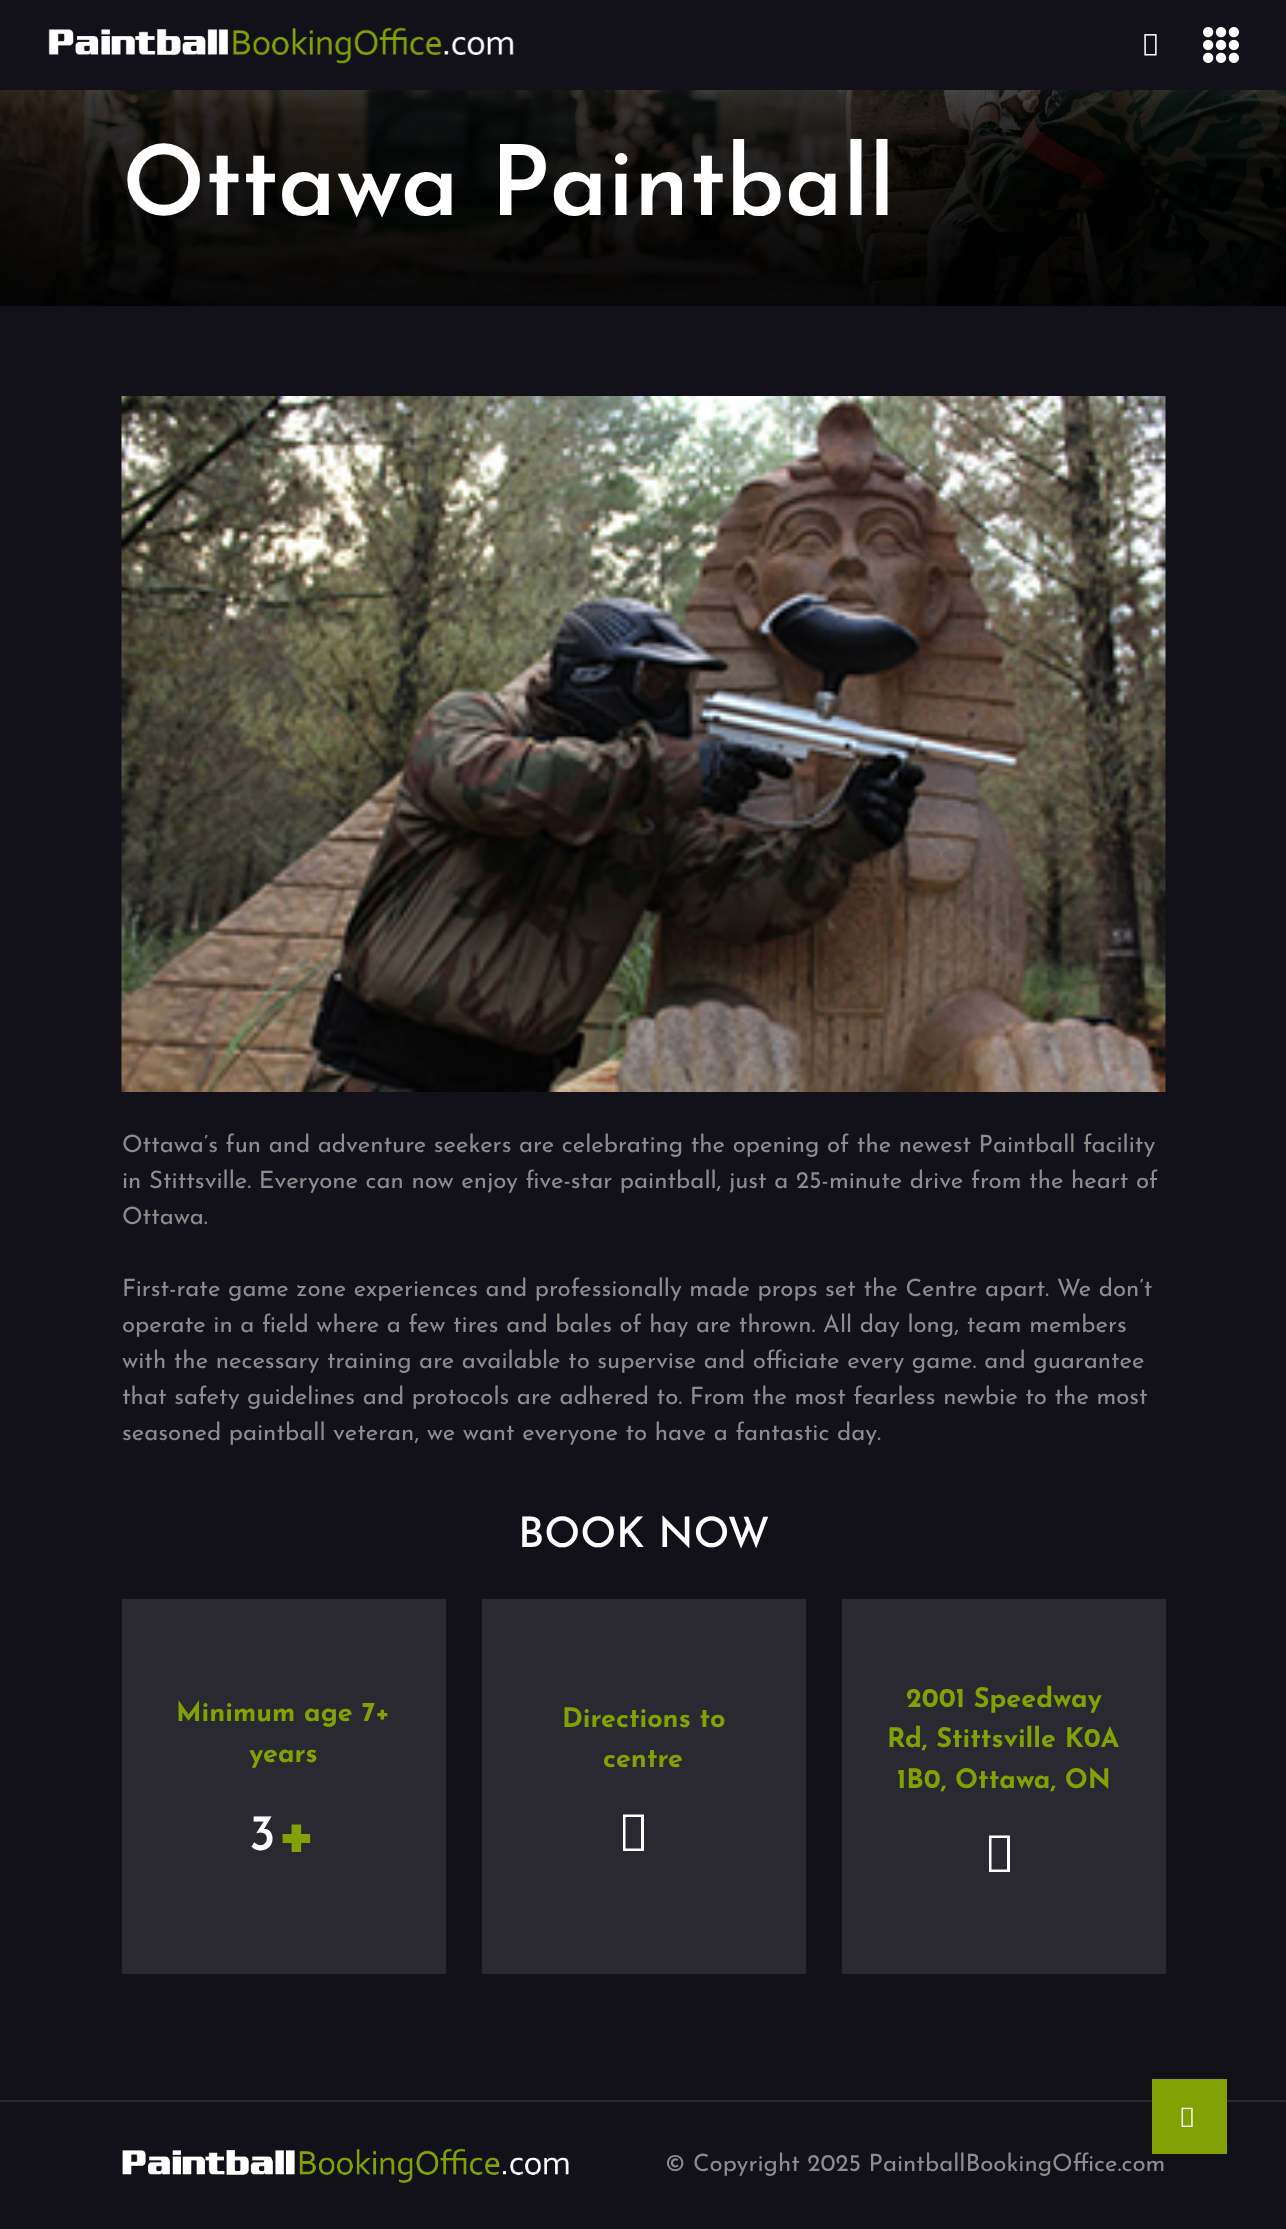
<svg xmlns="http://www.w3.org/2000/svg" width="1286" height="2229">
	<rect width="100%" height="100%" fill="#12111A" />
	<image x="0" y="90" width="1286" height="216" href="assets/img4.png" />
	<rect x="0" y="2" width="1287" height="90" fill="#FFFFFF" fill-opacity="0.09" filter="blur(22.5px)" />
	<rect x="0" y="0" width="1286" height="90" fill="#12111A" />
	<image x="48" y="27" width="466" height="37" href="assets/img1.png" />
	<image x="1144" y="34" width="13" height="22" href="assets/img2.png" />
	<image x="1203" y="27" width="36" height="36" href="assets/img3.png" />
	<text x="122" y="215" font-family="Josefin Sans" font-size="97.5" font-weight="600" fill="#FFFFFF">Ottawa Paintball</text>
	<image x="121" y="396" width="1045" height="696" href="assets/img5.png" />
	<g font-family="Josefin Sans" font-size="24" fill="#8D8C8C">
		<text x="122" y="1152">Ottawa’s fun and adventure seekers are celebrating the opening of the newest Paintball facility</text>
		<text x="122" y="1188">in Stittsville. Everyone can now enjoy five-star paintball, just a 25-minute drive from the heart of</text>
		<text x="122" y="1224">Ottawa.</text>
		<text x="122" y="1296">First-rate game zone experiences and professionally made props set the Centre apart. We don’t</text>
		<text x="122" y="1332">operate in a field where a few tires and bales of hay are thrown. All day long, team members</text>
		<text x="122" y="1368">with the necessary training are available to supervise and officiate every game. and guarantee</text>
		<text x="122" y="1404">that safety guidelines and protocols are adhered to. From the most fearless newbie to the most</text>
		<text x="122" y="1440">seasoned paintball veteran, we want everyone to have a fantastic day.</text>
	</g>
	<text x="518" y="1547" font-family="Josefin Sans" font-size="42" font-weight="500" fill="#FFFFFF">BOOK NOW</text>
	<rect x="122" y="1599" width="324" height="375" fill="#2A2931" />
	<g font-family="Josefin Sans" font-size="27" font-weight="700" fill="#81A105">
		<text x="176" y="1721">Minimum age 7+</text>
		<text x="249" y="1762">years</text>
	</g>
	<text x="249" y="1850" font-family="Josefin Sans" font-size="51" font-weight="500" fill="#FFFFFF">3</text>
	<text x="276" y="1856" font-family="Josefin Sans" font-size="75" font-weight="700" fill="#81A105">+</text>
	<rect x="482" y="1599" width="324" height="375" fill="#2A2931" />
	<g font-family="Josefin Sans" font-size="27" font-weight="700" fill="#81A105">
		<text x="562" y="1727">Directions to</text>
		<text x="603" y="1767">centre</text>
	</g>
	<path d="M623 1851V1814.5H644V1851ZM625.5 1848.5H641V1817H625.5Z" fill="#FFFFFF" />
	<rect x="842" y="1599" width="324" height="375" fill="#2A2931" />
	<g font-family="Josefin Sans" font-size="27" font-weight="700" fill="#81A105">
		<text x="906" y="1707">2001 Speedway</text>
		<text x="887" y="1747">Rd, Stittsville K0A</text>
		<text x="897" y="1788">1B0, Ottawa, ON</text>
	</g>
	<path d="M989 1872V1835.5H1010V1872ZM991.5 1869.5H1007V1838H991.5Z" fill="#FFFFFF" />
	<rect x="0" y="2100" width="1286" height="2" fill="#2A2931" />
	<text x="665" y="2171" font-family="Josefin Sans" font-size="24" fill="#8D8C8C">© Copyright 2025 PaintballBookingOffice.com</text>
	<rect x="1152" y="2079" width="75" height="75" fill="#81A105" />
	<image x="1181" y="2107" width="12" height="20" href="assets/img6.png" />
	<image x="122" y="2148" width="447" height="35" href="assets/img7.png" />
</svg>
